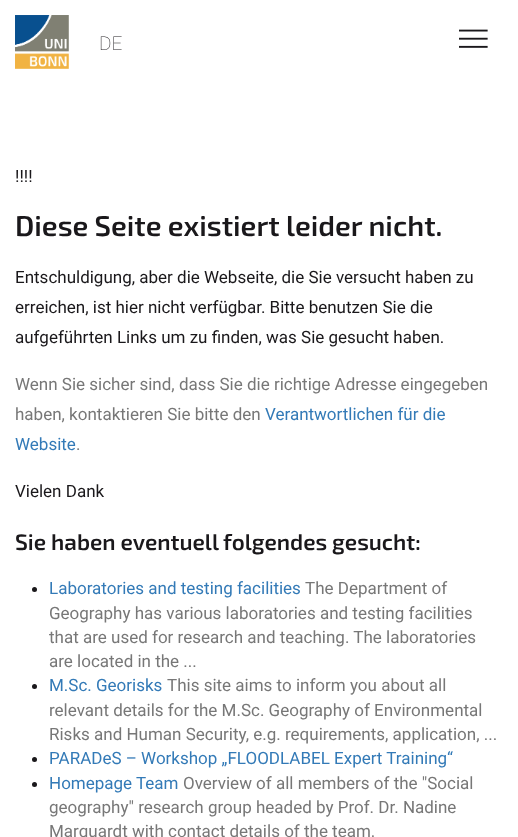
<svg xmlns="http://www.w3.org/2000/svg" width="518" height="837">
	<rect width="100%" height="100%" fill="#FFFFFF" />
	<image x="15" y="15" width="54" height="54" href="assets/img1.png" />
	<text x="99" y="50" font-family="Roboto" font-size="19" font-weight="100" fill="#1A181B">DE</text>
	<image x="459" y="29" width="29" height="19" href="assets/img2.png" />
	<text x="15" y="182" font-family="Roboto" font-size="17" fill="#1A181B">!!!!</text>
	<text x="15" y="236" font-family="'Exo 2'" font-size="28.6" font-weight="600" fill="#1A181B">Diese Seite existiert leider nicht.</text>
	<g font-family="Roboto" font-size="17" fill="#1A181B">
		<text x="15" y="283">Entschuldigung, aber die Webseite, die Sie versucht haben zu</text>
		<text x="15" y="313">erreichen, ist hier nicht verfügbar. Bitte benutzen Sie die</text>
		<text x="15" y="343">aufgeführten Links um zu finden, was Sie gesucht haben.</text>
	</g>
	<g font-family="Roboto" font-size="17" fill="#777777">
		<text x="15" y="390">Wenn Sie sicher sind, dass Sie die richtige Adresse eingegeben</text>
		<text x="15" y="420">haben, kontaktieren Sie bitte den</text>
	</g>
	<g font-family="Roboto" font-size="17" fill="#337AB7">
		<text x="265" y="420">Verantwortlichen für die</text>
		<text x="15" y="450">Website</text>
	</g>
	<text x="76" y="450" font-family="Roboto" font-size="17" fill="#777777">.</text>
	<text x="15" y="497" font-family="Roboto" font-size="17" fill="#1A181B">Vielen Dank</text>
	<text x="15" y="550" font-family="'Exo 2'" font-size="22.4" font-weight="600" fill="#1A181B">Sie haben eventuell folgendes gesucht:</text>
	<circle cx="34.5" cy="589.5" r="2.5" fill="#1A181B" />
	<text x="49" y="594" font-family="Roboto" font-size="17" fill="#337AB7">Laboratories and testing facilities</text>
	<g font-family="Roboto" font-size="17" fill="#777777">
		<text x="305" y="594">The Department of</text>
		<text x="49" y="619">Geography has various laboratories and testing facilities</text>
		<text x="49" y="643">that are used for research and teaching. The laboratories</text>
		<text x="49" y="667">are located in the ...</text>
	</g>
	<circle cx="34.5" cy="686.5" r="2.5" fill="#1A181B" />
	<text x="49" y="691" font-family="Roboto" font-size="17" fill="#337AB7">M.Sc. Georisks</text>
	<g font-family="Roboto" font-size="17" fill="#777777">
		<text x="167" y="691">This site aims to inform you about all</text>
		<text x="49" y="716">relevant details for the M.Sc. Geography of Environmental</text>
		<text x="49" y="740">Risks and Human Security, e.g. requirements, application, ...</text>
	</g>
	<circle cx="34.5" cy="759.5" r="2.5" fill="#1A181B" />
	<text x="49" y="764" font-family="Roboto" font-size="17" fill="#337AB7">PARADeS – Workshop „FLOODLABEL Expert Training“</text>
	<circle cx="34.5" cy="784.5" r="2.5" fill="#1A181B" />
	<text x="49" y="789" font-family="Roboto" font-size="17" fill="#337AB7">Homepage Team</text>
	<g font-family="Roboto" font-size="17" fill="#777777">
		<text x="183" y="789">Overview of all members of the "Social</text>
		<text x="49" y="813">geography" research group headed by Prof. Dr. Nadine</text>
		<text x="49" y="837">Marquardt with contact details of the team.</text>
	</g>
</svg>
